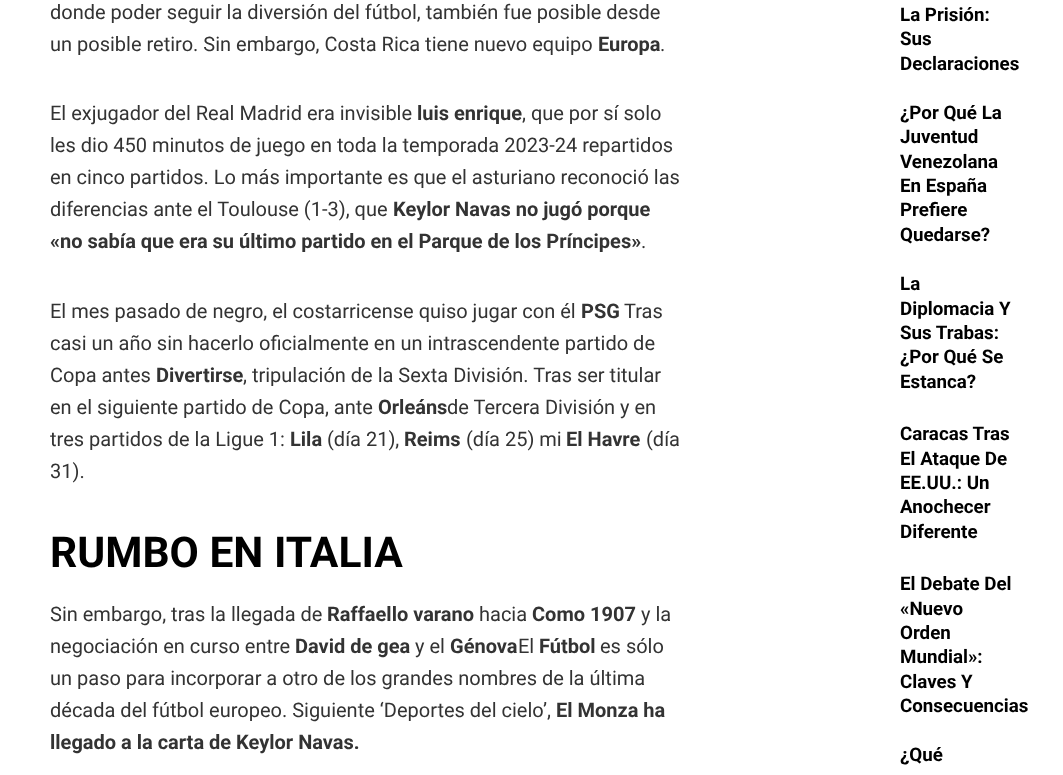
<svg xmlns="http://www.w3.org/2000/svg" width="1063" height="775">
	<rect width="100%" height="100%" fill="#FFFFFF" />
	<g font-family="Roboto" font-size="20" fill="#333333">
		<text x="50" y="19">donde poder seguir la diversión del fútbol, también fue posible desde</text>
		<text x="50" y="51">un posible retiro. Sin embargo, Costa Rica tiene nuevo equipo</text>
	</g>
	<text x="598" y="51" font-family="Roboto" font-size="20" font-weight="700" fill="#333333">Europa</text>
	<g font-family="Roboto" font-size="20" fill="#333333">
		<text x="660" y="51">.</text>
		<text x="50" y="120">El exjugador del Real Madrid era invisible</text>
	</g>
	<text x="417" y="120" font-family="Roboto" font-size="20" font-weight="700" fill="#333333">luis enrique</text>
	<g font-family="Roboto" font-size="20" fill="#333333">
		<text x="522" y="120">, que por sí solo</text>
		<text x="50" y="152">les dio 450 minutos de juego en toda la temporada 2023-24 repartidos</text>
		<text x="50" y="184">en cinco partidos. Lo más importante es que el asturiano reconoció las</text>
		<text x="50" y="216">diferencias ante el Toulouse (1-3), que</text>
	</g>
	<g font-family="Roboto" font-size="20" font-weight="700" fill="#333333">
		<text x="393" y="216">Keylor Navas no jugó porque</text>
		<text x="50" y="248">«no sabía que era su último partido en el Parque de los Príncipes»</text>
	</g>
	<g font-family="Roboto" font-size="20" fill="#333333">
		<text x="641" y="248">.</text>
		<text x="50" y="318">El mes pasado de negro, el costarricense quiso jugar con él</text>
	</g>
	<text x="581" y="318" font-family="Roboto" font-size="20" font-weight="700" fill="#333333">PSG</text>
	<g font-family="Roboto" font-size="20" fill="#333333">
		<text x="624" y="318">Tras</text>
		<text x="50" y="350">casi un año sin hacerlo oficialmente en un intrascendente partido de</text>
		<text x="50" y="382">Copa antes</text>
	</g>
	<text x="156" y="382" font-family="Roboto" font-size="20" font-weight="700" fill="#333333">Divertirse</text>
	<g font-family="Roboto" font-size="20" fill="#333333">
		<text x="243" y="382">, tripulación de la Sexta División. Tras ser titular</text>
		<text x="50" y="414">en el siguiente partido de Copa, ante</text>
	</g>
	<text x="378" y="414" font-family="Roboto" font-size="20" font-weight="700" fill="#333333">Orleáns</text>
	<g font-family="Roboto" font-size="20" fill="#333333">
		<text x="447" y="414">de Tercera División y en</text>
		<text x="50" y="446">tres partidos de la Ligue 1:</text>
	</g>
	<text x="290" y="446" font-family="Roboto" font-size="20" font-weight="700" fill="#333333">Lila</text>
	<text x="327" y="446" font-family="Roboto" font-size="20" fill="#333333">(día 21),</text>
	<text x="404" y="446" font-family="Roboto" font-size="20" font-weight="700" fill="#333333">Reims</text>
	<text x="466" y="446" font-family="Roboto" font-size="20" fill="#333333">(día 25) mi</text>
	<text x="566" y="446" font-family="Roboto" font-size="20" font-weight="700" fill="#333333">El Havre</text>
	<g font-family="Roboto" font-size="20" fill="#333333">
		<text x="646" y="446">(día</text>
		<text x="50" y="478">31).</text>
	</g>
	<text x="50" y="567" font-family="Roboto" font-size="42.5" font-weight="700" fill="#000000">RUMBO EN ITALIA</text>
	<text x="50" y="621" font-family="Roboto" font-size="20" fill="#333333">Sin embargo, tras la llegada de</text>
	<text x="327" y="621" font-family="Roboto" font-size="20" font-weight="700" fill="#333333">Raffaello varano</text>
	<text x="479" y="621" font-family="Roboto" font-size="20" fill="#333333">hacia</text>
	<text x="532" y="621" font-family="Roboto" font-size="20" font-weight="700" fill="#333333">Como 1907</text>
	<g font-family="Roboto" font-size="20" fill="#333333">
		<text x="641" y="621">y la</text>
		<text x="50" y="653">negociación en curso entre</text>
	</g>
	<text x="295" y="653" font-family="Roboto" font-size="20" font-weight="700" fill="#333333">David de gea</text>
	<text x="415" y="653" font-family="Roboto" font-size="20" fill="#333333">y el</text>
	<text x="450" y="653" font-family="Roboto" font-size="20" font-weight="700" fill="#333333">Génova</text>
	<text x="518" y="653" font-family="Roboto" font-size="20" fill="#333333">El</text>
	<text x="539" y="653" font-family="Roboto" font-size="20" font-weight="700" fill="#333333">Fútbol</text>
	<g font-family="Roboto" font-size="20" fill="#333333">
		<text x="600" y="653">es sólo</text>
		<text x="50" y="685">un paso para incorporar a otro de los grandes nombres de la última</text>
		<text x="50" y="717">década del fútbol europeo. Siguiente ‘Deportes del cielo’,</text>
	</g>
	<g font-family="Roboto" font-size="20" font-weight="700" fill="#333333">
		<text x="556" y="717">El Monza ha</text>
		<text x="50" y="749">llegado a la carta de Keylor Navas.</text>
	</g>
	<g font-family="Roboto" font-size="18.75" font-weight="700" fill="#000000">
		<text x="900" y="21">La Prisión:</text>
		<text x="900" y="45">Sus</text>
		<text x="900" y="70">Declaraciones</text>
		<text x="900" y="119">¿Por Qué La</text>
		<text x="900" y="143">Juventud</text>
		<text x="900" y="168">Venezolana</text>
		<text x="900" y="192">En España</text>
		<text x="900" y="216">Prefiere</text>
		<text x="900" y="241">Quedarse?</text>
		<text x="900" y="290">La</text>
		<text x="900" y="315">Diplomacia Y</text>
		<text x="900" y="339">Sus Trabas:</text>
		<text x="900" y="363">¿Por Qué Se</text>
		<text x="900" y="388">Estanca?</text>
		<text x="900" y="440">Caracas Tras</text>
		<text x="900" y="465">El Ataque De</text>
		<text x="900" y="489">EE.UU.: Un</text>
		<text x="900" y="513">Anochecer</text>
		<text x="900" y="538">Diferente</text>
		<text x="900" y="590">El Debate Del</text>
		<text x="900" y="615">«Nuevo</text>
		<text x="900" y="639">Orden</text>
		<text x="900" y="663">Mundial»:</text>
		<text x="900" y="688">Claves Y</text>
		<text x="900" y="712">Consecuencias</text>
		<text x="900" y="761">¿Qué</text>
	</g>
</svg>
